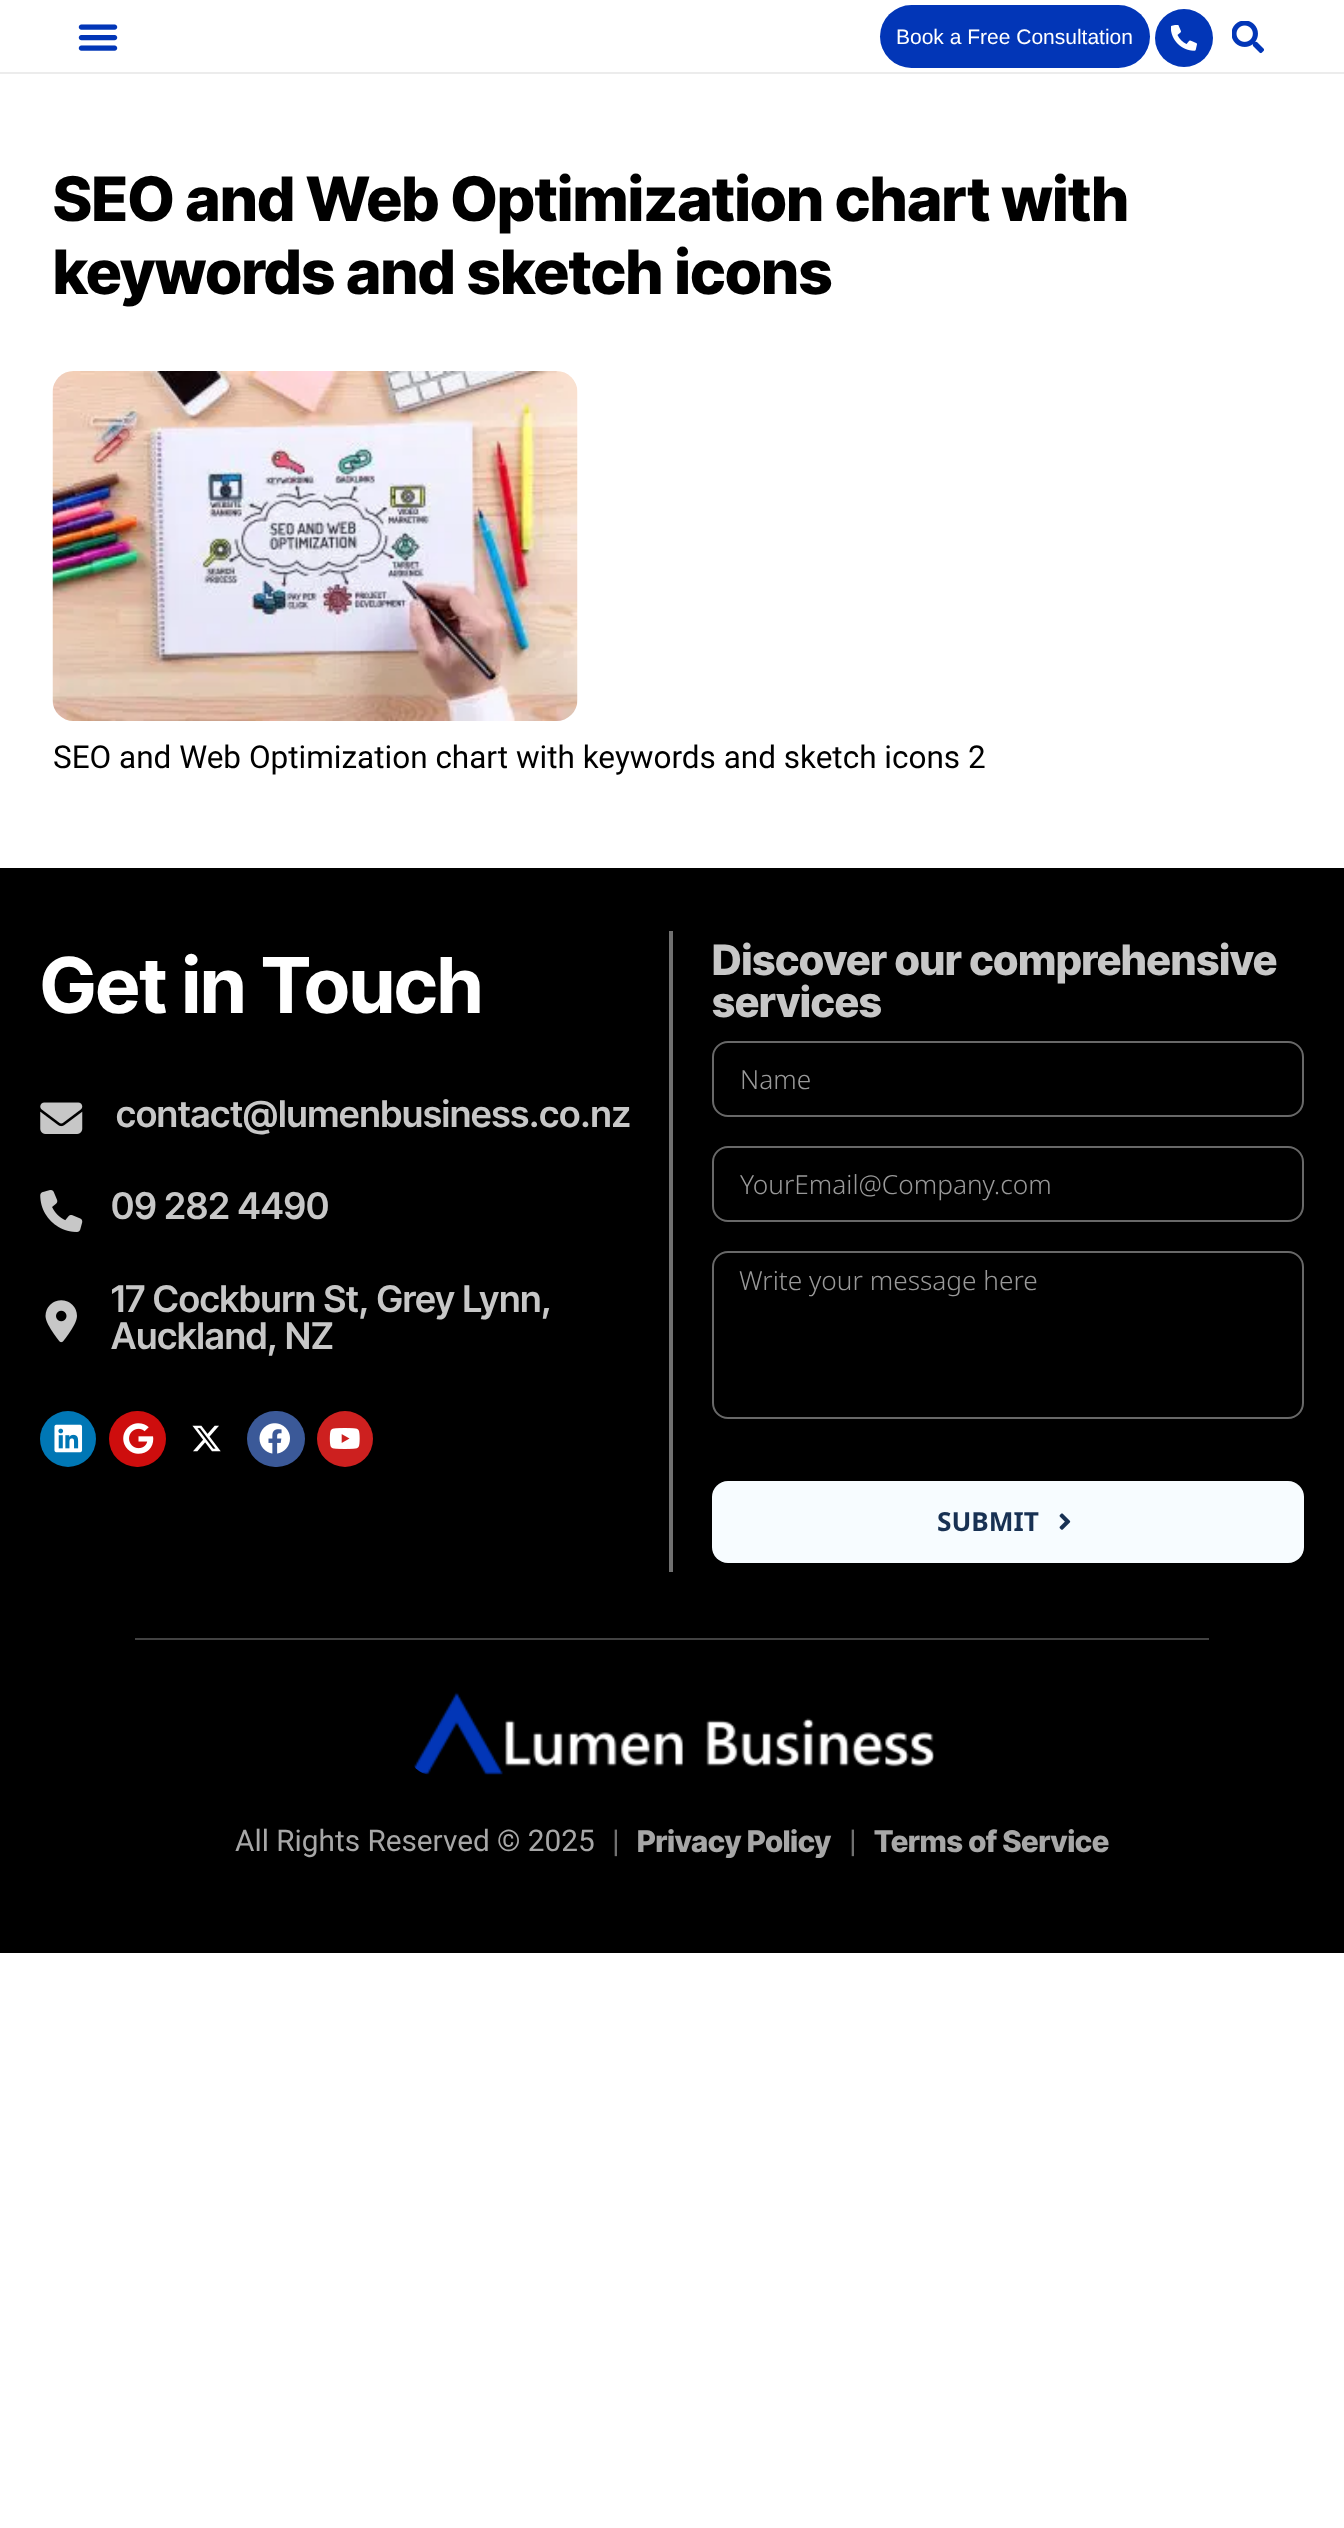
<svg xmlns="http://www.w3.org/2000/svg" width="1344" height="2528">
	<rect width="100%" height="100%" fill="#FFFFFF" />
	<rect x="0" y="72" width="1344" height="2" fill="#ECECEC" />
	<image x="78" y="24" width="40" height="27" href="assets/img1.png" />
	<rect x="880" y="5" width="270" height="63" rx="31.5" fill="#0236B7" />
	<text x="896" y="44" font-family="Liberation Sans" font-size="21" fill="#FFFFFF">Book a Free Consultation</text>
	<circle cx="1184" cy="38" r="29" fill="#0236B7" />
	<image x="1171" y="25" width="26" height="26" href="assets/img2.png" />
	<image x="1232" y="21" width="32" height="33" href="assets/img3.png" />
	<g font-family="Inter Tight" font-size="61.25" font-weight="800" fill="#000000">
		<text x="53" y="221">SEO and Web Optimization chart with</text>
		<text x="53" y="294">keywords and sketch icons</text>
	</g>
	<image x="52" y="371" width="526" height="350" href="assets/img4.png" />
	<text x="53" y="768" font-family="Roboto" font-size="31.5" fill="#000000">SEO and Web Optimization chart with keywords and sketch icons 2</text>
	<rect x="0" y="868" width="1344" height="1085" fill="#000000" />
	<rect x="669" y="931" width="4" height="641" fill="#707070" />
	<text x="40" y="1013" font-family="Inter Tight" font-size="77" font-weight="700" fill="#FFFFFF">Get in Touch</text>
	<image x="40" y="1102" width="43" height="32" href="assets/img5.png" />
	<text x="116" y="1127" font-family="Inter Tight" font-size="36.75" font-weight="600" fill="#C7C7C7">contact@lumenbusiness.co.nz</text>
	<image x="40" y="1190" width="43" height="42" href="assets/img6.png" />
	<text x="111" y="1219" font-family="Inter Tight" font-size="36.75" font-weight="600" fill="#C7C7C7">09 282 4490</text>
	<image x="45" y="1300" width="32" height="43" href="assets/img7.png" />
	<g font-family="Inter Tight" font-size="36.75" font-weight="600" fill="#C7C7C7">
		<text x="111" y="1312">17 Cockburn St, Grey Lynn,</text>
		<text x="111" y="1349">Auckland, NZ</text>
	</g>
	<circle cx="68" cy="1439" r="28" fill="#0077B5" />
	<image x="54" y="1424" width="29" height="29" href="assets/img8.png" />
	<rect x="109" y="1411" width="57" height="56" rx="28" fill="#CE0D0D" />
	<image x="123" y="1423" width="31" height="31" href="assets/img9.png" />
	<image x="192" y="1425" width="29" height="27" href="assets/img10.png" />
	<rect x="247" y="1411" width="58" height="56" rx="28" fill="#3B5998" />
	<image x="259" y="1423" width="31" height="31" href="assets/img11.png" />
	<circle cx="345" cy="1439" r="28" fill="#CD201F" />
	<image x="329" y="1428" width="31" height="21" href="assets/img12.png" />
	<g font-family="Inter Tight" font-size="42" font-weight="800" fill="#C7C7C7">
		<text x="712" y="975">Discover our comprehensive</text>
		<text x="712" y="1017">services</text>
	</g>
	<rect x="713" y="1042" width="590" height="74" rx="15" fill="none" stroke="#686868" stroke-width="2" />
	<text x="740" y="1089" font-family="Noto Sans" font-size="26.25" font-weight="300" fill="#999999">Name</text>
	<rect x="713" y="1147" width="590" height="74" rx="15" fill="none" stroke="#686868" stroke-width="2" />
	<text x="740" y="1194" font-family="Noto Sans" font-size="26.25" font-weight="300" fill="#999999">YourEmail@Company.com</text>
	<rect x="713" y="1252" width="590" height="166" rx="15" fill="none" stroke="#686868" stroke-width="2" />
	<text x="739" y="1290" font-family="Noto Sans" font-size="26.25" font-weight="300" fill="#999999">Write your message here</text>
	<rect x="712" y="1481" width="592" height="82" rx="16" fill="#F7FCFF" />
	<text x="937" y="1531" font-family="Noto Sans" font-size="26.25" font-weight="700" fill="#183153">SUBMIT</text>
	<image x="1059" y="1513" width="12" height="17" href="assets/img13.png" />
	<rect x="135" y="1638" width="1074" height="2" fill="#424242" />
	<image x="414" y="1692" width="520" height="83" href="assets/img14.png" />
	<text x="235" y="1851" font-family="Roboto" font-size="29.75" fill="#A7A7A7">All Rights Reserved © 2025</text>
	<text x="612" y="1852" font-family="Roboto" font-size="31.5" fill="#707070">|</text>
	<text x="637" y="1852" font-family="Inter Tight" font-size="29.75" font-weight="800" fill="#A7A7A7">Privacy Policy</text>
	<text x="849" y="1852" font-family="Roboto" font-size="31.5" fill="#707070">|</text>
	<text x="874" y="1852" font-family="Inter Tight" font-size="29.75" font-weight="800" fill="#A7A7A7">Terms of Service</text>
</svg>
